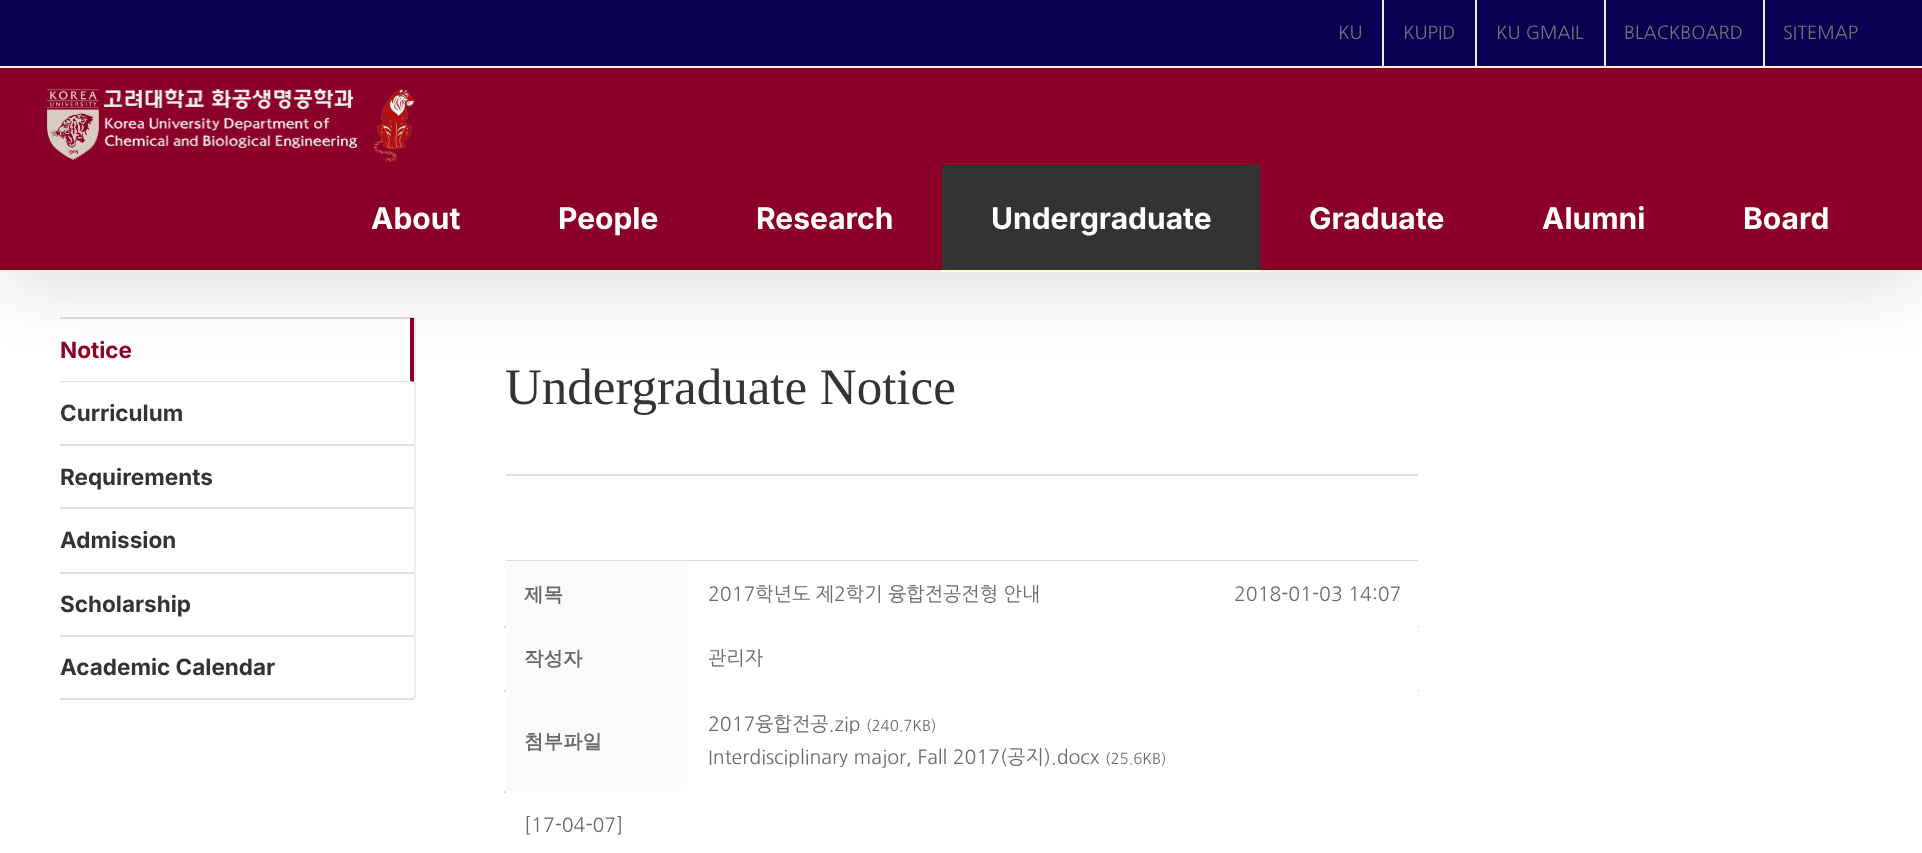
<svg xmlns="http://www.w3.org/2000/svg" width="1922" height="853">
	<rect width="100%" height="100%" fill="#FFFFFF" />
	<rect x="60" y="317" width="356" height="2" fill="#E0DEDE" />
	<rect x="414" y="317" width="2" height="382" fill="#EDEDED" />
	<path d="M414 318V382L410 381V318Z" fill="#8B0028" />
	<path d="M414 382H60V381H410Z" fill="#E0DEDE" />
	<rect x="3" y="18" width="1917" height="266" fill="#000000" fill-opacity="0.14" filter="blur(37.5px)" />
	<rect x="0" y="0" width="1922" height="66" fill="#090051" />
	<rect x="0" y="66" width="1922" height="2" fill="#FFFDD0" />
	<text x="1338" y="39" font-family="NanumGothic" font-size="18" fill="#747474">KU</text>
	<rect x="1382" y="0" width="2" height="66" fill="#EBEAEA" />
	<text x="1403" y="39" font-family="NanumGothic" font-size="18" fill="#747474">KUPID</text>
	<rect x="1475" y="0" width="2" height="66" fill="#EBEAEA" />
	<text x="1496" y="39" font-family="NanumGothic" font-size="18" fill="#747474">KU GMAIL</text>
	<rect x="1604" y="0" width="2" height="66" fill="#EBEAEA" />
	<text x="1624" y="39" font-family="NanumGothic" font-size="18" fill="#747474">BLACKBOARD</text>
	<rect x="1763" y="0" width="2" height="66" fill="#EBEAEA" />
	<text x="1783" y="39" font-family="NanumGothic" font-size="18" fill="#747474">SITEMAP</text>
	<rect x="0" y="68" width="1922" height="202" fill="#8B0028" />
	<rect x="0" y="270" width="1922" height="2" fill="#FFFDD0" />
	<image x="47" y="88" width="368" height="74" href="assets/img1.png" />
	<g font-family="Inter" font-size="30" font-weight="700" fill="#FFFFFF">
		<text x="371" y="229">About</text>
		<text x="558" y="229">People</text>
		<text x="756" y="229">Research</text>
	</g>
	<rect x="942" y="165" width="318" height="105" fill="#333333" />
	<g font-family="Inter" font-size="30" font-weight="700" fill="#FFFFFF">
		<text x="991" y="229">Undergraduate</text>
		<text x="1309" y="229">Graduate</text>
		<text x="1542" y="229">Alumni</text>
		<text x="1743" y="229">Board</text>
	</g>
	<text x="60" y="358" font-family="Inter" font-size="22.5" font-weight="700" fill="#8B0028">Notice</text>
	<rect x="60" y="444" width="354" height="2" fill="#E0DEDE" />
	<text x="60" y="421" font-family="Inter" font-size="22.5" font-weight="700" fill="#333333">Curriculum</text>
	<rect x="60" y="507" width="354" height="2" fill="#E0DEDE" />
	<text x="60" y="485" font-family="Inter" font-size="22.5" font-weight="700" fill="#333333">Requirements</text>
	<rect x="60" y="572" width="354" height="2" fill="#E0DEDE" />
	<text x="60" y="548" font-family="Inter" font-size="22.5" font-weight="700" fill="#333333">Admission</text>
	<rect x="60" y="635" width="354" height="2" fill="#E0DEDE" />
	<text x="60" y="612" font-family="Inter" font-size="22.5" font-weight="700" fill="#333333">Scholarship</text>
	<rect x="60" y="698" width="354" height="2" fill="#E0DEDE" />
	<text x="60" y="675" font-family="Inter" font-size="22.5" font-weight="700" fill="#333333">Academic Calendar</text>
	<text x="505" y="404" font-family="Liberation Serif" font-size="51" fill="#333333">Undergraduate Notice</text>
	<rect x="506" y="474" width="912" height="2" fill="#E0DEDE" />
	<rect x="506" y="560" width="912" height="1" fill="#DBDBDB" />
	<rect x="504" y="626" width="2" height="2" fill="#DBDBDB" />
	<rect x="506" y="561" width="181" height="230" fill="#FBFBFB" />
	<text x="524" y="601" font-family="WenQuanYi Zen Hei" font-size="19.5" font-weight="700" fill="#6A6A6A">제목</text>
	<rect x="1418" y="626" width="1" height="2" fill="#DBDBDB" />
	<g font-family="NanumGothic" font-size="19.5" fill="#6A6A6A">
		<text x="708" y="601">2017학년도 제2학기 융합전공전형 안내</text>
		<text x="1234" y="601">2018-01-03 14:07</text>
	</g>
	<rect x="504" y="690" width="2" height="2" fill="#DBDBDB" />
	<text x="524" y="665" font-family="WenQuanYi Zen Hei" font-size="19.5" font-weight="700" fill="#6A6A6A">작성자</text>
	<rect x="1418" y="690" width="1" height="2" fill="#DBDBDB" />
	<text x="708" y="665" font-family="NanumGothic" font-size="19.5" fill="#6A6A6A">관리자</text>
	<rect x="504" y="791" width="2" height="2" fill="#DBDBDB" />
	<text x="524" y="748" font-family="WenQuanYi Zen Hei" font-size="19.5" font-weight="700" fill="#6A6A6A">첨부파일</text>
	<rect x="1418" y="791" width="1" height="2" fill="#DBDBDB" />
	<text x="708" y="731" font-family="NanumGothic" font-size="19.5" fill="#6A6A6A">2017융합전공.zip</text>
	<text x="866" y="731" font-family="NanumGothic" font-size="15" fill="#6A6A6A">(240.7KB)</text>
	<text x="708" y="764" font-family="NanumGothic" font-size="19.5" fill="#6A6A6A">Interdisciplinary major, Fall 2017(공지).docx</text>
	<text x="1105" y="764" font-family="NanumGothic" font-size="15" fill="#6A6A6A">(25.6KB)</text>
	<text x="524" y="832" font-family="NanumGothic" font-size="19.5" fill="#6A6A6A">[17-04-07]</text>
</svg>
